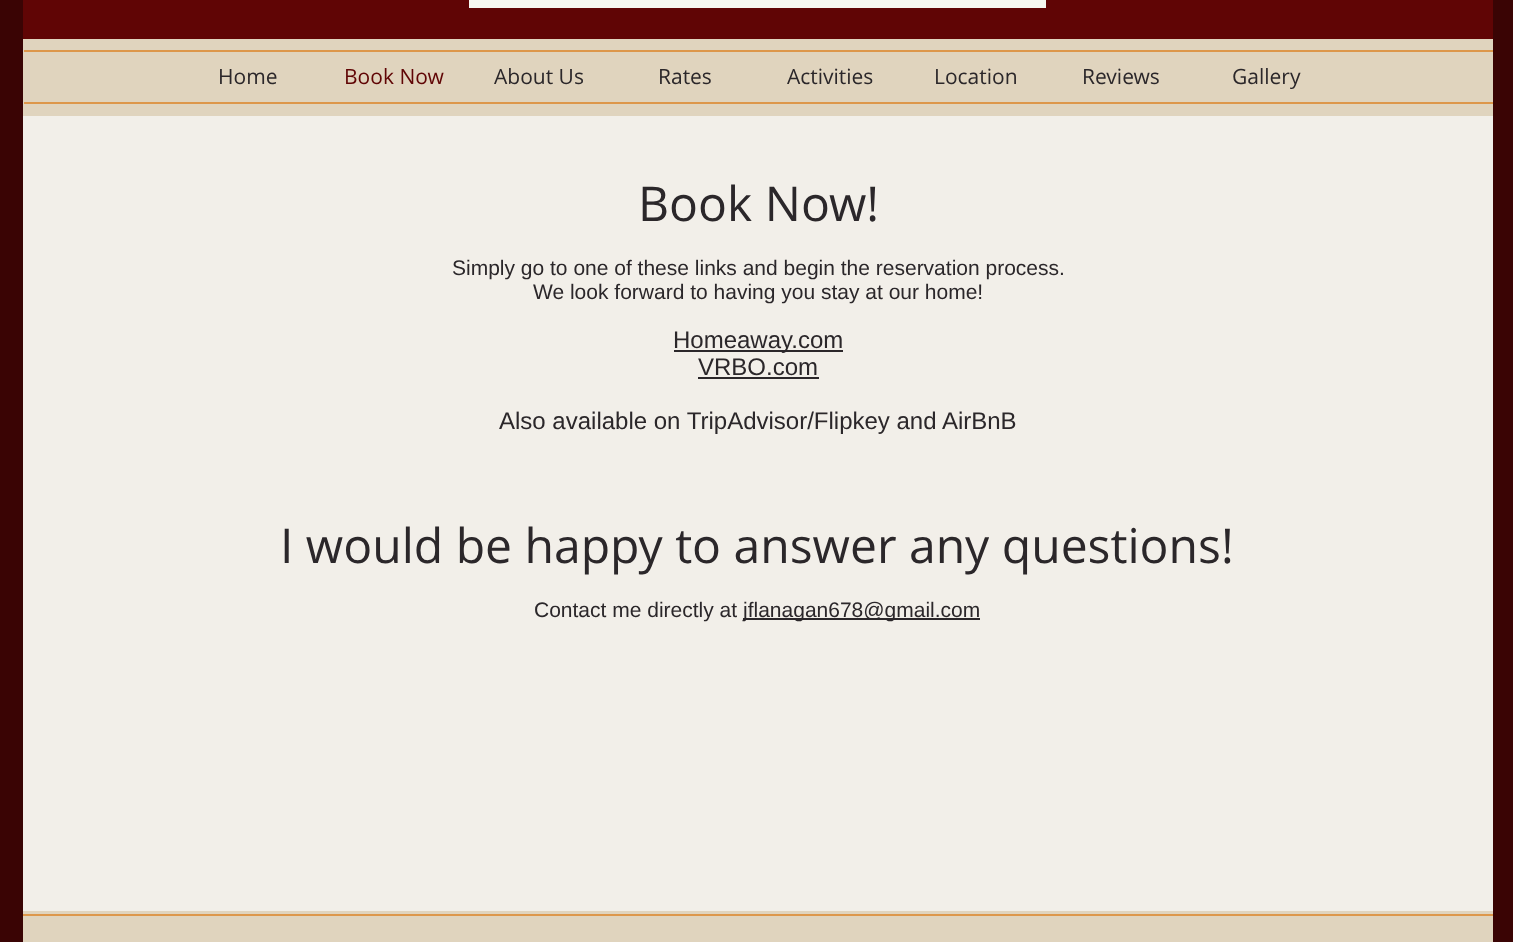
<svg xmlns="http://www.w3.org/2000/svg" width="1513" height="942">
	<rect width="100%" height="100%" fill="#3A0404" />
	<rect x="23" y="0" width="1470" height="39" fill="#600505" />
	<rect x="469" y="0" width="577" height="8" fill="#F6F7F0" />
	<rect x="23" y="39" width="1470" height="77" fill="#E0D4BE" />
	<rect x="24" y="50" width="1469" height="2" fill="#DD974B" />
	<rect x="24" y="102" width="1469" height="2" fill="#DD974B" />
	<text x="218" y="84" font-family="Open Sans" font-size="21" fill="#2B272A">Home</text>
	<text x="344" y="84" font-family="Open Sans" font-size="21" fill="#600505">Book Now</text>
	<g font-family="Open Sans" font-size="21" fill="#2B272A">
		<text x="494" y="84">About Us</text>
		<text x="658" y="84">Rates</text>
		<text x="787" y="84">Activities</text>
		<text x="934" y="84">Location</text>
		<text x="1082" y="84">Reviews</text>
		<text x="1232" y="84">Gallery</text>
	</g>
	<rect x="23" y="116" width="1470" height="795" fill="#F2EFE9" />
	<text x="638" y="221" font-family="Open Sans" font-size="48" fill="#2B272A">Book Now!</text>
	<g font-family="Liberation Sans" font-size="21" fill="#2B272A">
		<text x="452" y="275">Simply go to one of these links and begin the reservation process.</text>
		<text x="533" y="299">We look forward to having you stay at our home!</text>
	</g>
	<rect x="674" y="350" width="169" height="2" fill="#2B272A" />
	<g font-family="Liberation Sans" font-size="24" fill="#2B272A">
		<text x="673" y="348">Homeaway.com</text>
		<text x="698" y="375">VRBO.com</text>
	</g>
	<rect x="698" y="377" width="121" height="2" fill="#2B272A" />
	<text x="499" y="429" font-family="Liberation Sans" font-size="24" fill="#2B272A">Also available on TripAdvisor/Flipkey and AirBnB</text>
	<text x="280" y="563" font-family="Open Sans" font-size="48" fill="#2B272A">I would be happy to answer any questions!</text>
	<text x="534" y="617" font-family="Liberation Sans" font-size="21" fill="#2B272A">Contact me directly at</text>
	<rect x="743" y="618" width="237" height="2" fill="#2B272A" />
	<text x="743" y="617" font-family="Liberation Sans" font-size="21" fill="#2B272A">jflanagan678@gmail.com</text>
	<rect x="23" y="911" width="1470" height="31" fill="#E0D4BE" />
	<rect x="23" y="914" width="1470" height="2" fill="#DD974B" />
</svg>
